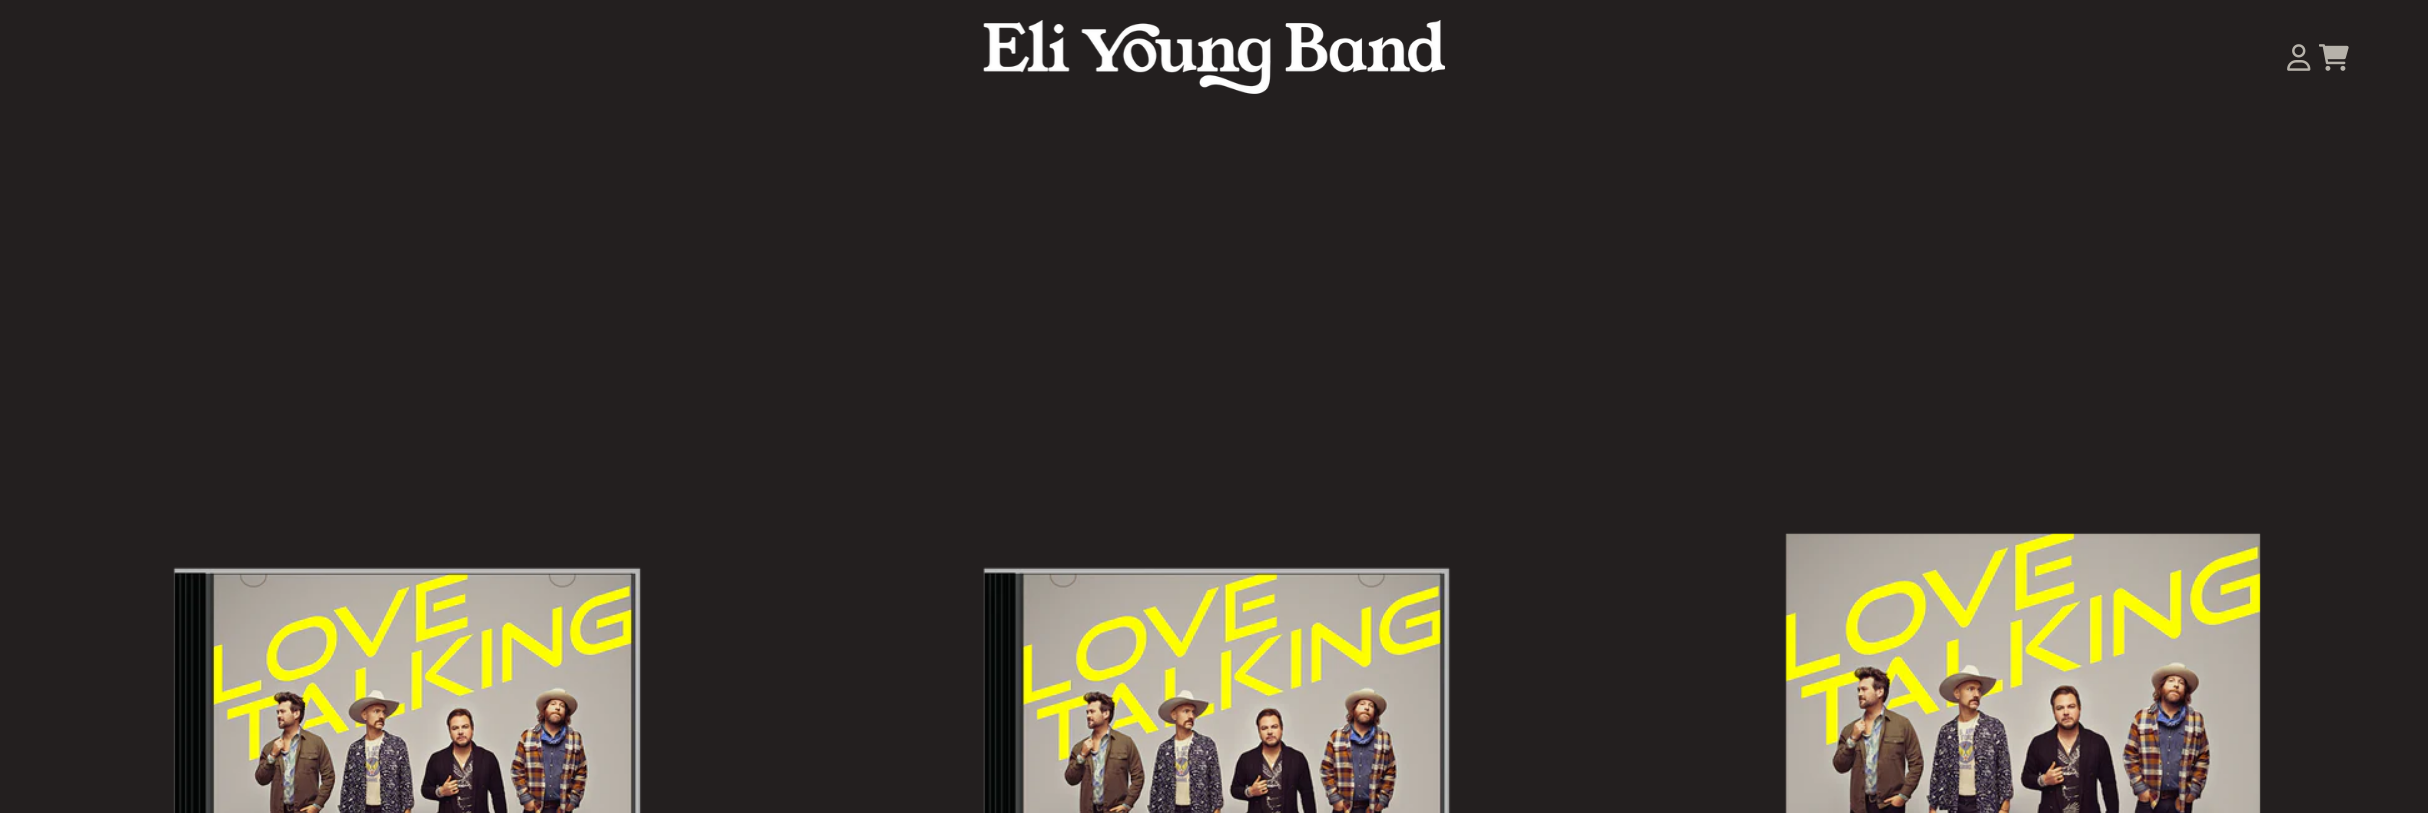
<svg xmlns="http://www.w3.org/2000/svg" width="2428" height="813">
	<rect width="100%" height="100%" fill="#231F1F" />
	<image x="983" y="20" width="463" height="74" href="assets/img1.png" />
	<image x="2287" y="44" width="24" height="27" href="assets/img2.png" />
	<image x="2319" y="44" width="30" height="27" href="assets/img3.png" />
	<image x="173" y="567" width="469" height="246" href="assets/img4.png" />
	<image x="983" y="567" width="468" height="246" href="assets/img5.png" />
	<image x="1785" y="532" width="476" height="281" href="assets/img6.png" />
</svg>
